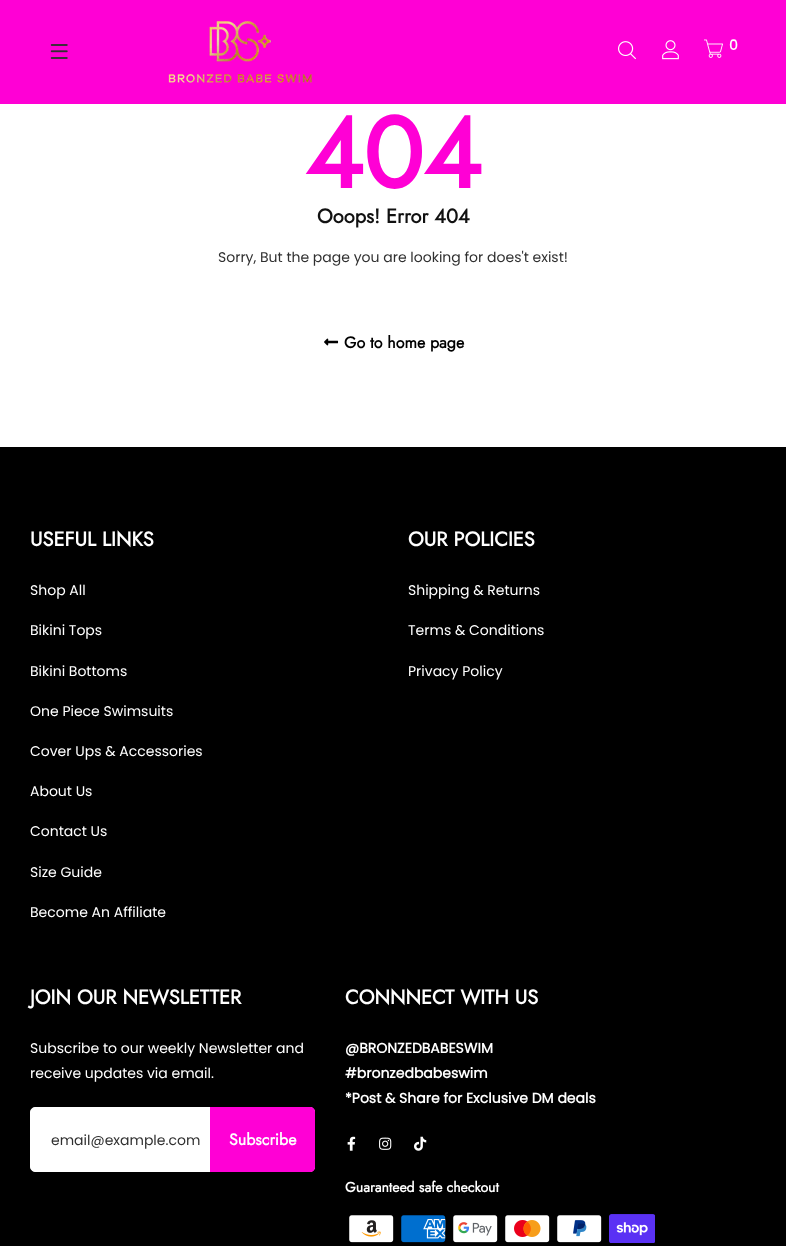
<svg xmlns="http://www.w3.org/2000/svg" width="786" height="1246">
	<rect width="100%" height="100%" fill="#FFFFFF" />
	<rect x="0" y="0" width="786" height="104" fill="#FF00D5" />
	<image x="50" y="44" width="18" height="15" href="assets/img1.png" />
	<image x="168" y="21" width="144" height="62" href="assets/img2.png" />
	<image x="618" y="41" width="18" height="19" href="assets/img3.png" />
	<image x="662" y="40" width="17" height="20" href="assets/img4.png" />
	<image x="704" y="39" width="19" height="19" href="assets/img5.png" />
	<text x="729" y="50" font-family="Poppins" font-size="14" font-weight="700" fill="#FFFFFF">0</text>
	<text x="305" y="188" font-family="Jost" font-size="100" font-weight="700" fill="#FF00D5">404</text>
	<text x="317" y="223" font-family="Jost" font-size="20" font-weight="700" fill="#111111">Ooops! Error 404</text>
	<text x="218" y="262" font-family="Poppins" font-size="14" fill="#303030">Sorry, But the page you are looking for does't exist!</text>
	<image x="324" y="338" width="15" height="8" href="assets/img6.png" />
	<text x="344" y="348" font-family="Jost" font-size="16" font-weight="700" fill="#000000">Go to home page</text>
	<rect x="0" y="447" width="786" height="799" fill="#000000" />
	<text x="30" y="546" font-family="Jost" font-size="20" font-weight="700" fill="#FFFFFF">USEFUL LINKS</text>
	<g font-family="Poppins" font-size="14" fill="#FFFFFF">
		<text x="30" y="595">Shop All</text>
		<text x="30" y="635">Bikini Tops</text>
		<text x="30" y="676">Bikini Bottoms</text>
		<text x="30" y="716">One Piece Swimsuits</text>
		<text x="30" y="756">Cover Ups &amp; Accessories</text>
		<text x="30" y="796">About Us</text>
		<text x="30" y="836">Contact Us</text>
		<text x="30" y="877">Size Guide</text>
		<text x="30" y="917">Become An Affiliate</text>
	</g>
	<text x="408" y="546" font-family="Jost" font-size="20" font-weight="700" fill="#FFFFFF">OUR POLICIES</text>
	<g font-family="Poppins" font-size="14" fill="#FFFFFF">
		<text x="408" y="595">Shipping &amp; Returns</text>
		<text x="408" y="635">Terms &amp; Conditions</text>
		<text x="408" y="676">Privacy Policy</text>
	</g>
	<text x="30" y="1004" font-family="Jost" font-size="20" font-weight="700" fill="#FFFFFF">JOIN OUR NEWSLETTER</text>
	<g font-family="Poppins" font-size="14" fill="#FFFFFF">
		<text x="30" y="1053">Subscribe to our weekly Newsletter and</text>
		<text x="30" y="1078">receive updates via email.</text>
	</g>
	<rect x="30.5" y="1107.5" width="284" height="64" rx="4.5" fill="#FFFFFF" stroke="#FFFFFF" />
	<text x="51" y="1145" font-family="Poppins" font-size="14" fill="#303030">email@example.com</text>
	<path d="M210 1107H310C313 1107 315 1109 315 1112V1167C315 1170 313 1172 310 1172H210Z" fill="#FF00D5" />
	<text x="229" y="1145" font-family="Jost" font-size="16" font-weight="700" fill="#FFFFFF">Subscribe</text>
	<text x="345" y="1004" font-family="Jost" font-size="20" font-weight="700" fill="#FFFFFF">CONNNECT WITH US</text>
	<g font-family="Poppins" font-size="14" font-weight="700" fill="#FFFFFF">
		<text x="345" y="1053">@BRONZEDBABESWIM</text>
		<text x="345" y="1078">#bronzedbabeswim</text>
		<text x="345" y="1103">*Post &amp; Share for Exclusive DM deals</text>
	</g>
	<image x="347" y="1136" width="9" height="15" href="assets/img7.png" />
	<image x="379" y="1137" width="13" height="13" href="assets/img8.png" />
	<image x="414" y="1136" width="13" height="15" href="assets/img9.png" />
	<text x="345" y="1192" font-family="Jost" font-size="14" font-weight="700" fill="#FFFFFF">Guaranteed safe checkout</text>
	<image x="349" y="1215" width="45" height="28" href="assets/img10.png" />
	<image x="401" y="1215" width="45" height="28" href="assets/img11.png" />
	<image x="453" y="1215" width="45" height="28" href="assets/img12.png" />
	<image x="505" y="1215" width="45" height="28" href="assets/img13.png" />
	<image x="557" y="1215" width="45" height="28" href="assets/img14.png" />
	<image x="609" y="1214" width="46" height="29" href="assets/img15.png" />
</svg>
